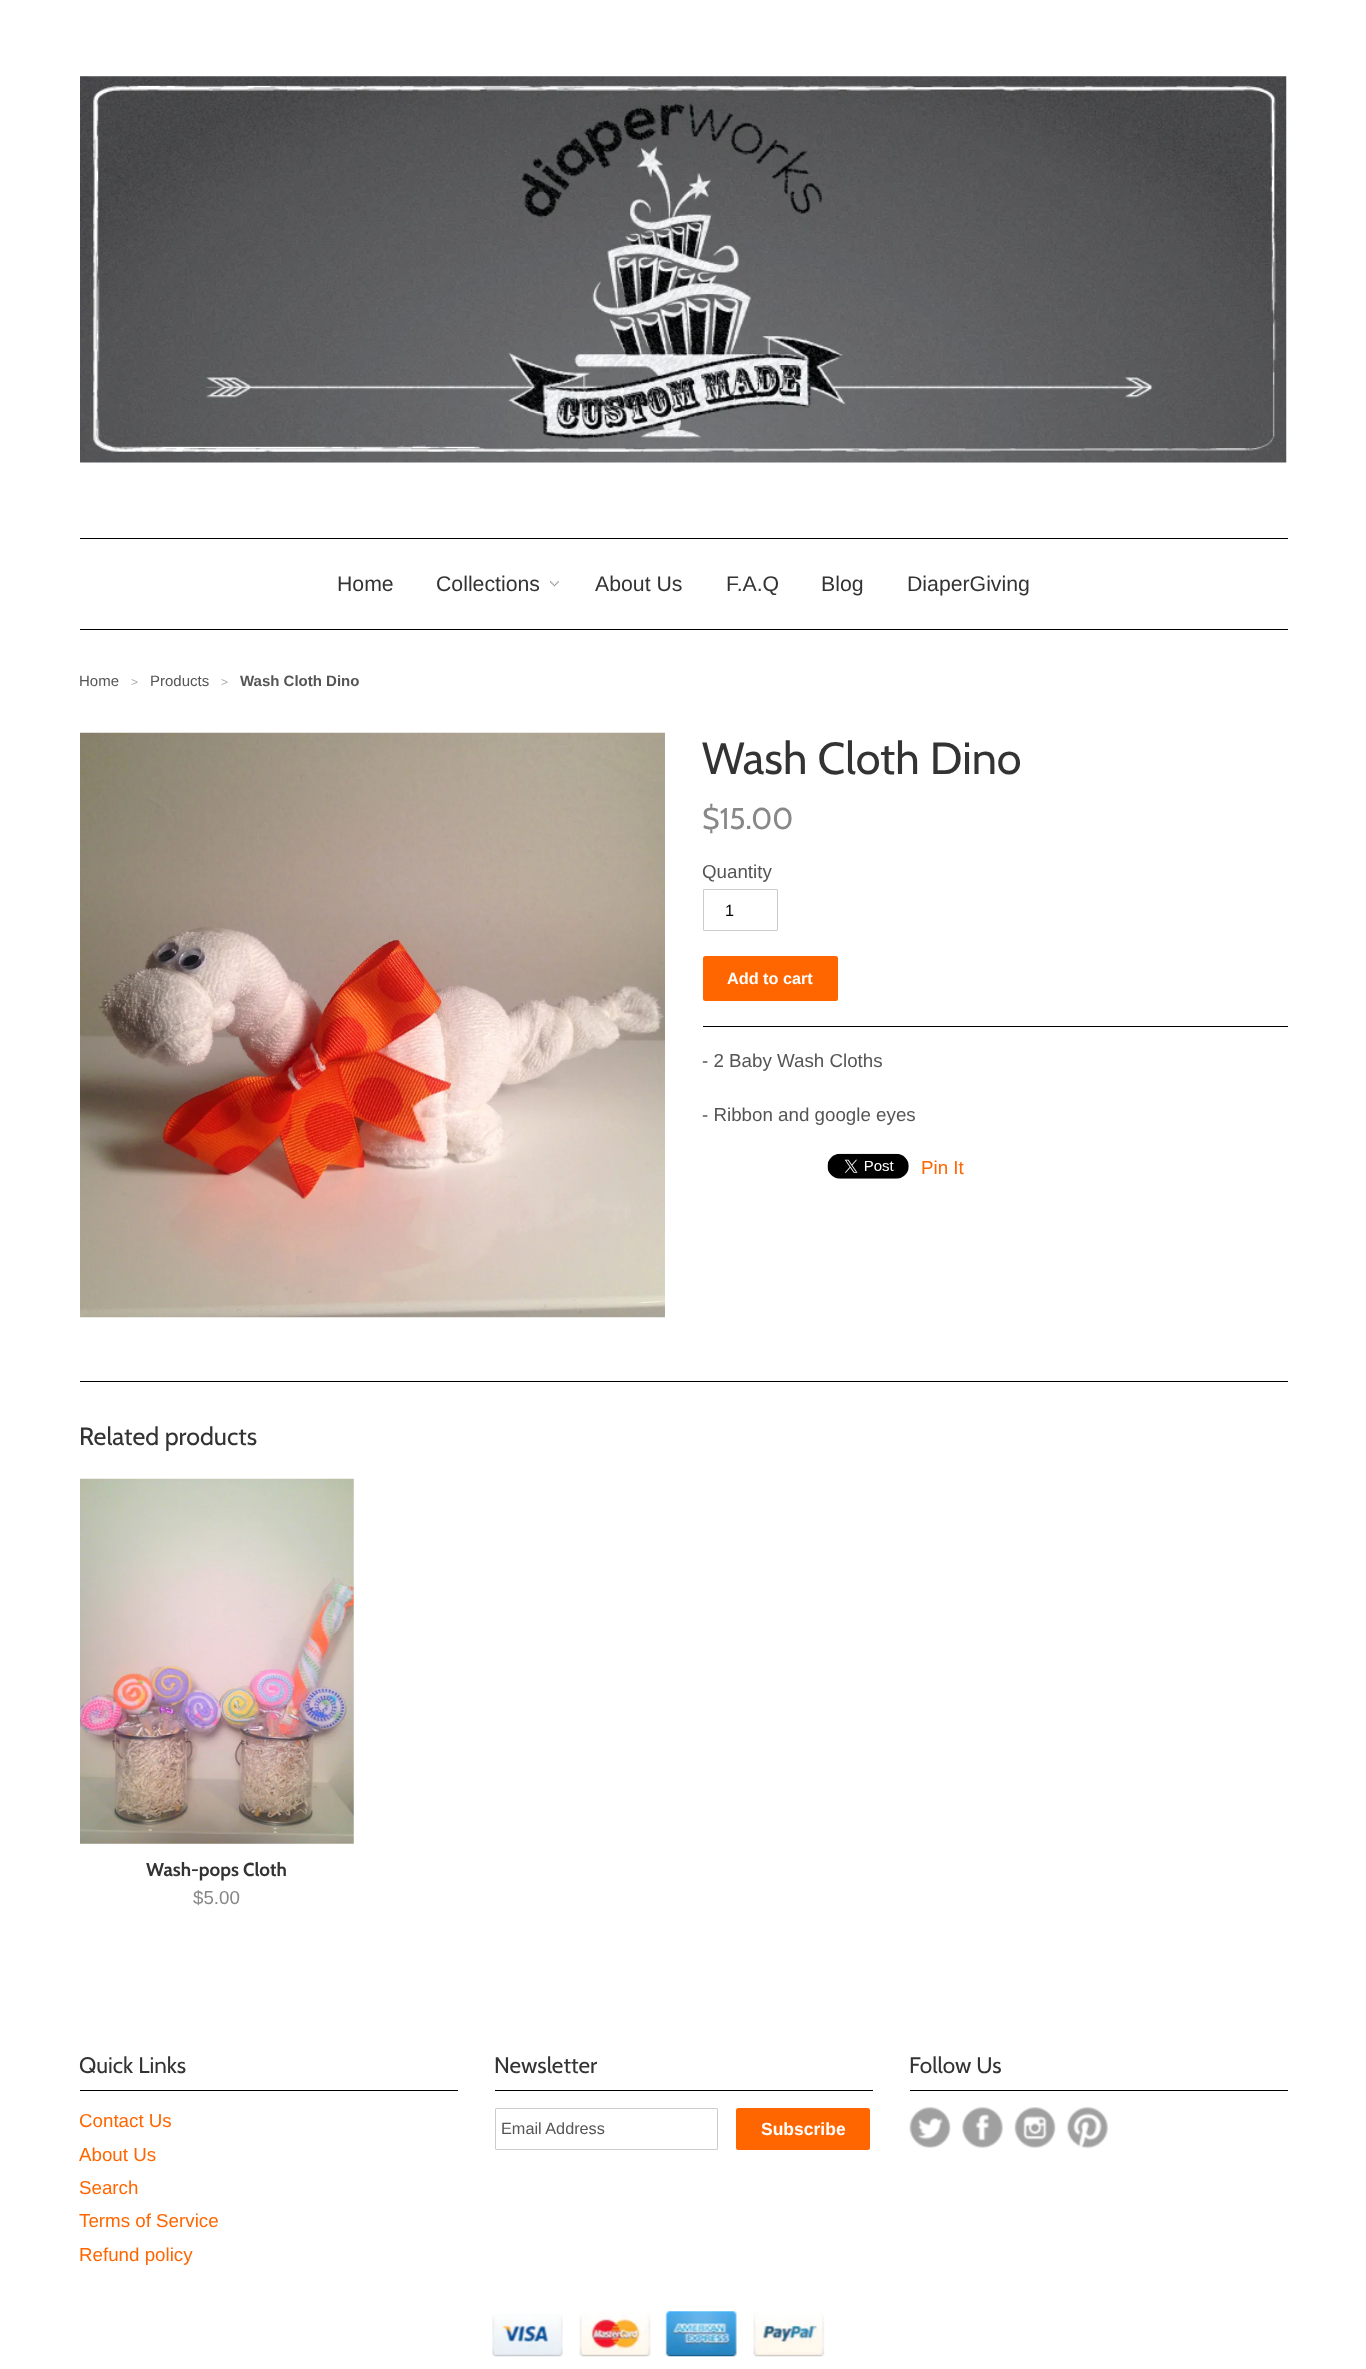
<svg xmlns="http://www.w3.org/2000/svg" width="1366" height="2369">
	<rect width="100%" height="100%" fill="#FFFFFF" />
	<image x="80" y="76" width="1207" height="387" href="assets/img1.png" />
	<rect x="80" y="538" width="1208" height="1" fill="#000000" />
	<rect x="80" y="629" width="1208" height="1" fill="#000000" />
	<text x="337" y="591" font-family="Liberation Sans" font-size="21.25" fill="#333333">Home</text>
	<image x="550" y="581" width="9" height="6" href="assets/img2.png" />
	<g font-family="Liberation Sans" font-size="21.25" fill="#333333">
		<text x="436" y="591">Collections</text>
		<text x="595" y="591">About Us</text>
		<text x="726" y="591">F.A.Q</text>
		<text x="821" y="591">Blog</text>
		<text x="907" y="591">DiaperGiving</text>
	</g>
	<text x="79" y="686" font-family="Liberation Sans" font-size="15" fill="#555555">Home</text>
	<text x="131" y="686" font-family="Liberation Sans" font-size="12" fill="#AAAAAA">&gt;</text>
	<text x="150" y="686" font-family="Liberation Sans" font-size="15" fill="#555555">Products</text>
	<text x="221" y="686" font-family="Liberation Sans" font-size="12" fill="#AAAAAA">&gt;</text>
	<text x="240" y="686" font-family="Liberation Sans" font-size="15" font-weight="700" fill="#555555">Wash Cloth Dino</text>
	<image x="80" y="732" width="585" height="586" href="assets/img3.png" />
	<text x="702" y="774" font-family="Cabin" font-size="45" fill="#333333">Wash Cloth Dino</text>
	<text x="702" y="829" font-family="Cabin" font-size="30" fill="#888888">$15.00</text>
	<rect x="703" y="1026" width="585" height="1" fill="#000000" />
	<text x="702" y="878" font-family="Liberation Sans" font-size="18.75" fill="#555555">Quantity</text>
	<rect x="703.5" y="889.5" width="74" height="41" rx="0.5" fill="none" stroke="#CCCCCC" />
	<text x="725" y="916" font-family="Liberation Sans" font-size="16.25" fill="#000000">1</text>
	<rect x="703" y="956" width="135" height="45" rx="2.5" fill="#FF6600" />
	<text x="727" y="984" font-family="Liberation Sans" font-size="16.25" font-weight="700" fill="#FFFFFF">Add to cart</text>
	<g font-family="Liberation Sans" font-size="18.75" fill="#555555">
		<text x="702" y="1067">- 2 Baby Wash Cloths</text>
		<text x="702" y="1121">- Ribbon and google eyes</text>
	</g>
	<image x="827" y="1153" width="82" height="26" href="assets/img4.png" />
	<text x="921" y="1174" font-family="Liberation Sans" font-size="18.75" fill="#FF6600">Pin It</text>
	<rect x="80" y="1381" width="1208" height="1" fill="#000000" />
	<text x="79" y="1445" font-family="Cabin" font-size="25" fill="#333333">Related products</text>
	<image x="80" y="1478" width="274" height="366" href="assets/img5.png" />
	<text x="146" y="1876" font-family="Cabin" font-size="18.75" font-weight="700" fill="#333333">Wash-pops Cloth</text>
	<text x="193" y="1904" font-family="Liberation Sans" font-size="18.75" fill="#888888">$5.00</text>
	<rect x="80" y="2090" width="378" height="1" fill="#000000" />
	<text x="79" y="2073" font-family="Cabin" font-size="22.5" fill="#333333">Quick Links</text>
	<g font-family="Liberation Sans" font-size="18.75" fill="#FF6600">
		<text x="79" y="2127">Contact Us</text>
		<text x="79" y="2161">About Us</text>
		<text x="79" y="2194">Search</text>
		<text x="79" y="2227">Terms of Service</text>
		<text x="79" y="2261">Refund policy</text>
	</g>
	<rect x="495" y="2090" width="378" height="1" fill="#000000" />
	<text x="494" y="2073" font-family="Cabin" font-size="22.5" fill="#333333">Newsletter</text>
	<rect x="495.5" y="2108.5" width="222" height="41" rx="0.5" fill="none" stroke="#CCCCCC" />
	<text x="501" y="2134" font-family="Liberation Sans" font-size="16.25" fill="#555555">Email Address</text>
	<rect x="736" y="2108" width="134" height="42" rx="2.5" fill="#FF6600" />
	<text x="761" y="2135" font-family="Liberation Sans" font-size="17.5" font-weight="700" fill="#FFFFFF">Subscribe</text>
	<rect x="910" y="2090" width="378" height="1" fill="#000000" />
	<text x="909" y="2073" font-family="Cabin" font-size="22.5" fill="#333333">Follow Us</text>
	<image x="909" y="2107" width="42" height="41" href="assets/img6.png" />
	<image x="961" y="2107" width="42" height="42" href="assets/img7.png" />
	<image x="1014" y="2107" width="42" height="41" href="assets/img8.png" />
	<image x="1066" y="2107" width="42" height="42" href="assets/img9.png" />
	<image x="492" y="2314" width="71" height="43" href="assets/img10.png" />
	<image x="579" y="2312" width="72" height="45" href="assets/img11.png" />
	<image x="665" y="2311" width="72" height="46" href="assets/img12.png" />
	<image x="753" y="2312" width="72" height="45" href="assets/img13.png" />
</svg>
